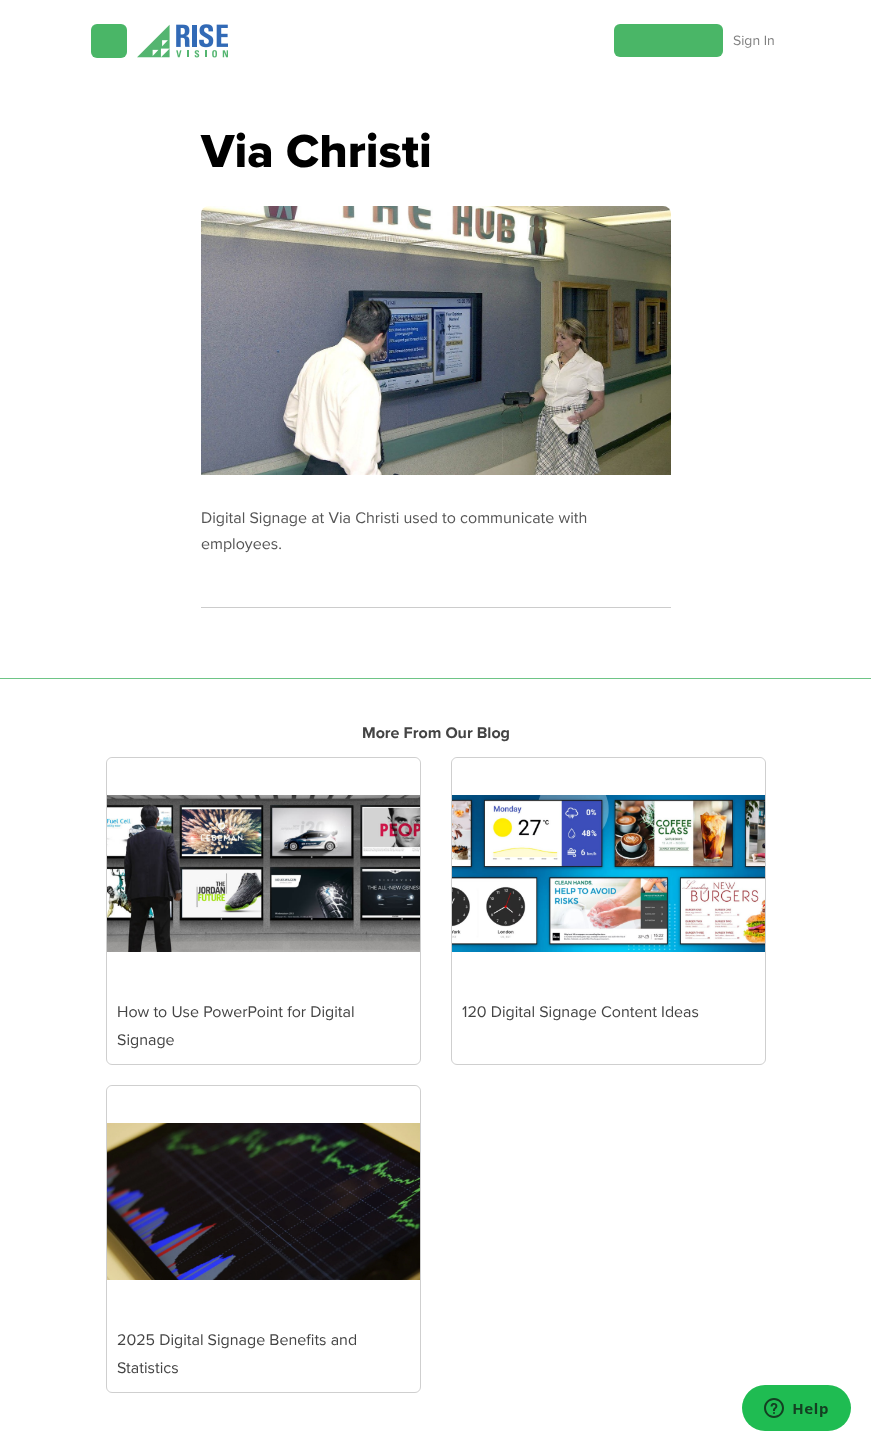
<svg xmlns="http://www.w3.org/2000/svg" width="871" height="1445">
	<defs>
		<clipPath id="clip1"><rect x="107" y="758" width="313" height="306" rx="5" /></clipPath>
		<clipPath id="clip2"><rect x="452" y="758" width="313" height="306" rx="5" /></clipPath>
		<clipPath id="clip3"><rect x="107" y="1086" width="313" height="306" rx="5" /></clipPath>
	</defs>
	<rect width="100%" height="100%" fill="#FFFFFF" />
	<rect x="91" y="24" width="36" height="34" rx="6" fill="#4AB667" />
	<image x="137" y="24" width="91" height="34" href="assets/img1.png" />
	<rect x="614" y="24" width="109" height="33" rx="6" fill="#4AB667" />
	<text x="733" y="45" font-family="Proxima Nova" font-size="14" fill="#808080">Sign In</text>
	<text x="201" y="167" font-family="Proxima Nova" font-size="48" font-weight="800" fill="#000000">Via Christi</text>
	<image x="201" y="206" width="470" height="269" href="assets/img2.png" />
	<g font-family="Proxima Nova" font-size="16" fill="#555555">
		<text x="201" y="523">Digital Signage at Via Christi used to communicate with</text>
		<text x="201" y="549">employees.</text>
	</g>
	<rect x="201" y="607" width="470" height="1" fill="#CCCCCC" />
	<rect x="0" y="678" width="871" height="1" fill="#6EC586" />
	<text x="362" y="738" font-family="Proxima Nova" font-size="16" font-weight="700" fill="#444444">More From Our Blog</text>
	<rect x="106.5" y="757.5" width="314" height="307" rx="5.5" fill="none" stroke="#CFCFCF" />
	<g clip-path="url(#clip1)">
		<rect x="107" y="758" width="313" height="230" rx="6" fill="#FFFFFF" />
	</g>
	<image x="107" y="795" width="313" height="157" href="assets/img3.png" />
	<g font-family="Proxima Nova" font-size="16" fill="#444444">
		<text x="117" y="1017">How to Use PowerPoint for Digital</text>
		<text x="117" y="1045">Signage</text>
	</g>
	<rect x="451.5" y="757.5" width="314" height="307" rx="5.5" fill="none" stroke="#CFCFCF" />
	<g clip-path="url(#clip2)">
		<rect x="452" y="758" width="313" height="230" rx="6" fill="#FFFFFF" />
	</g>
	<image x="452" y="795" width="313" height="157" href="assets/img4.png" />
	<text x="462" y="1017" font-family="Proxima Nova" font-size="16" fill="#444444">120 Digital Signage Content Ideas</text>
	<rect x="106.5" y="1085.5" width="314" height="307" rx="5.5" fill="none" stroke="#CFCFCF" />
	<g clip-path="url(#clip3)">
		<rect x="107" y="1086" width="313" height="230" rx="6" fill="#FFFFFF" />
	</g>
	<image x="107" y="1123" width="313" height="157" href="assets/img5.png" />
	<g font-family="Proxima Nova" font-size="16" fill="#444444">
		<text x="117" y="1345">2025 Digital Signage Benefits and</text>
		<text x="117" y="1373">Statistics</text>
	</g>
	<image x="742" y="1385" width="109" height="46" href="assets/img6.png" />
</svg>
